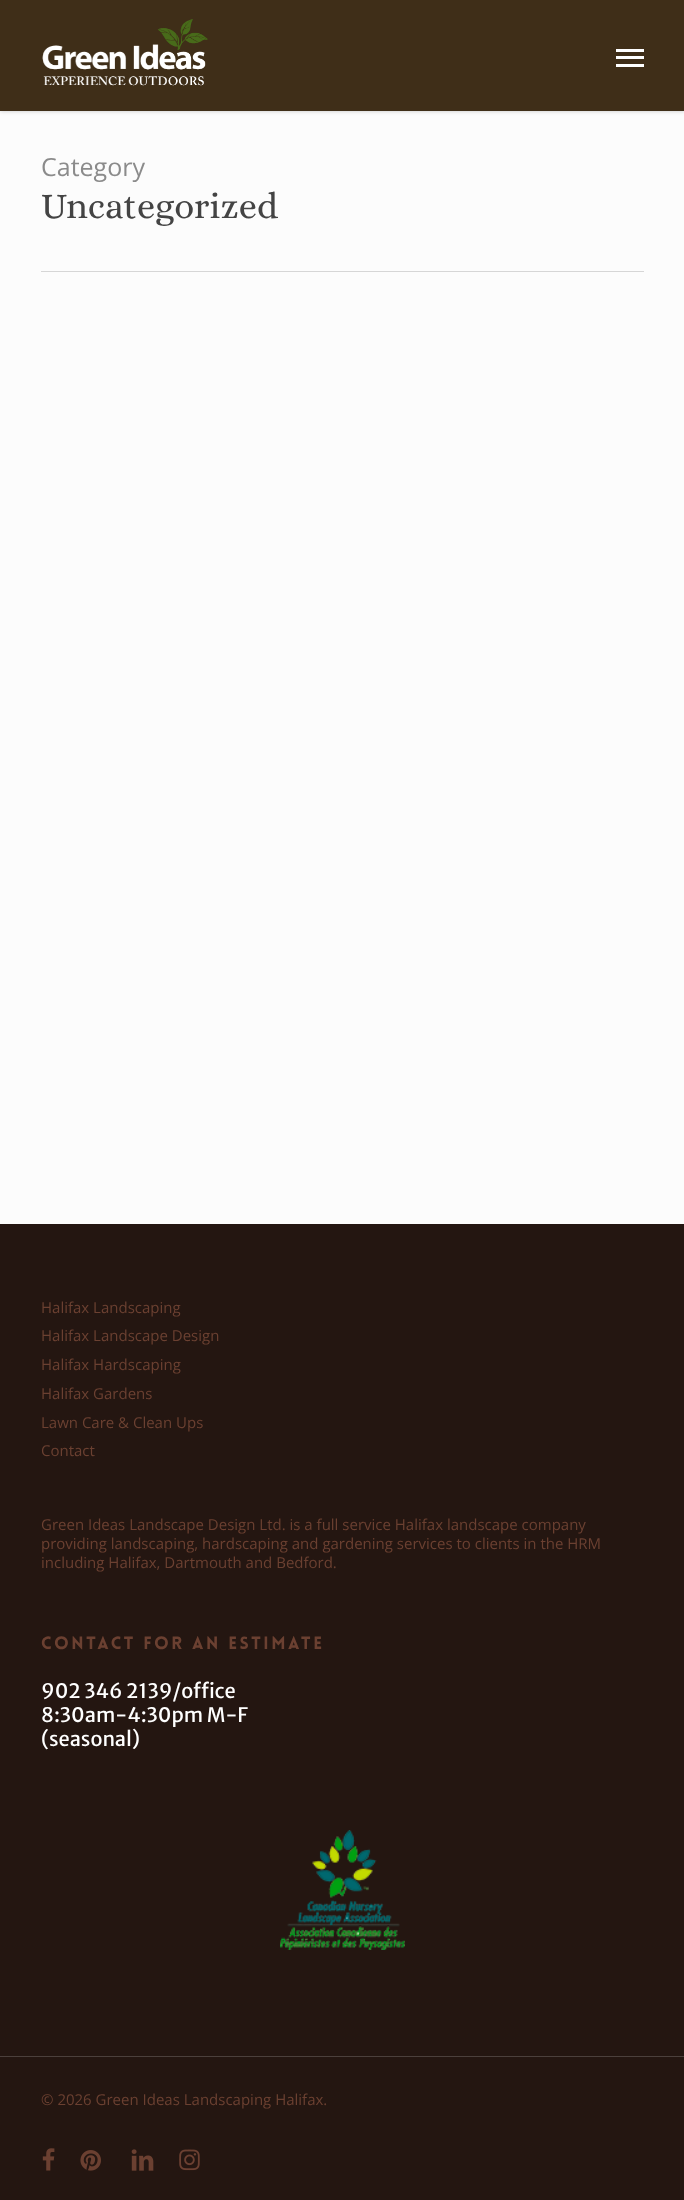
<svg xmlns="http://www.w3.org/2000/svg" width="684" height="2200">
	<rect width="100%" height="100%" fill="#FCFCFC" />
	<rect x="0" y="0" width="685" height="111" fill="#000000" fill-opacity="0.22" filter="blur(2px)" />
	<rect x="0" y="0" width="684" height="111" fill="#3F2E18" />
	<image x="42" y="19" width="166" height="67" href="assets/img1.png" />
	<rect x="616" y="49" width="28" height="3" fill="#FFFFFF" />
	<rect x="616" y="64" width="28" height="3" fill="#FFFFFF" />
	<rect x="616" y="56" width="28" height="3" fill="#FFFFFF" />
	<rect x="41" y="271" width="603" height="1" fill="#D6D6D6" />
	<text x="41" y="176" font-family="Open Sans" font-size="25" fill="#8B8B8B">Category</text>
	<text x="41" y="218" font-family="Alice" font-size="36.5" fill="#444444">Uncategorized</text>
	<rect x="0" y="1224" width="684" height="976" fill="#241611" />
	<g font-family="Open Sans" font-size="15" fill="#6B4031">
		<text x="41" y="1313">Halifax Landscaping</text>
		<text x="41" y="1341">Halifax Landscape Design</text>
		<text x="41" y="1370">Halifax Hardscaping</text>
		<text x="41" y="1399">Halifax Gardens</text>
		<text x="41" y="1428">Lawn Care &amp; Clean Ups</text>
		<text x="41" y="1456">Contact</text>
		<text x="41" y="1530">Green Ideas Landscape Design Ltd. is a full service Halifax landscape company</text>
		<text x="41" y="1549">providing landscaping, hardscaping and gardening services to clients in the HRM</text>
		<text x="41" y="1568">including Halifax, Dartmouth and Bedford.</text>
	</g>
	<text x="41" y="1649" font-family="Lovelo" font-size="17.5" font-weight="900" letter-spacing="2.5" fill="#6B4031">CONTACT FOR AN ESTIMATE</text>
	<g font-family="Merriweather Sans" font-size="20" fill="#FFFFFF">
		<text x="41" y="1698">902 346 2139/office</text>
		<text x="41" y="1722">8:30am-4:30pm M-F</text>
		<text x="41" y="1746">(seasonal)</text>
	</g>
	<image x="280" y="1830" width="125" height="120" href="assets/img2.png" />
	<rect x="0" y="2056" width="684" height="1" fill="#4B403C" />
	<text x="41" y="2105" font-family="Open Sans" font-size="15" fill="#6B4031">© 2026 Green Ideas Landscaping Halifax.</text>
	<image x="42" y="2148" width="13" height="23" href="assets/img3.png" />
	<image x="80" y="2150" width="21" height="21" href="assets/img4.png" />
	<image x="131" y="2149" width="23" height="22" href="assets/img5.png" />
	<image x="179" y="2149" width="21" height="22" href="assets/img6.png" />
</svg>
